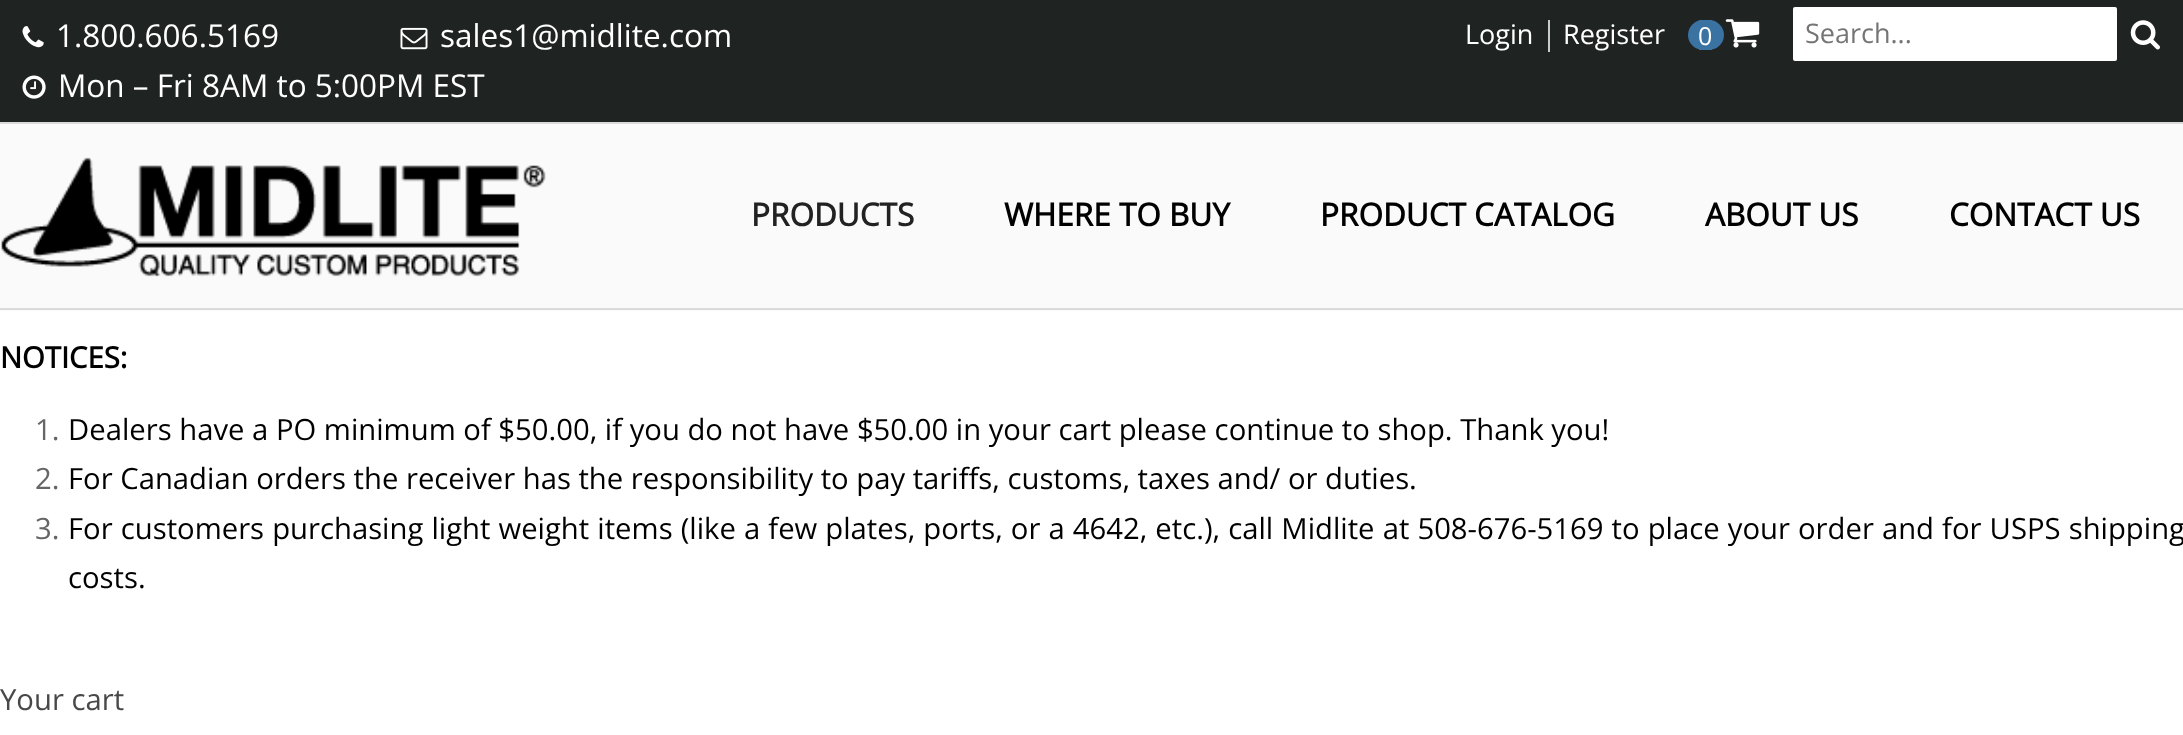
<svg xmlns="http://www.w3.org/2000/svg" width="2183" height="735">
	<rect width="100%" height="100%" fill="#FFFFFF" />
	<rect x="0" y="0" width="2183" height="122" fill="#1F2322" />
	<image x="22" y="26" width="22" height="22" href="assets/img1.png" />
	<text x="56" y="47" font-family="Open Sans" font-size="31.5" fill="#FFFFFF">1.800.606.5169</text>
	<image x="400" y="27" width="28" height="23" href="assets/img2.png" />
	<text x="440" y="47" font-family="Open Sans" font-size="31.5" fill="#FFFFFF">sales1@midlite.com</text>
	<image x="22" y="75" width="24" height="24" href="assets/img3.png" />
	<text x="58" y="97" font-family="Open Sans" font-size="31.5" fill="#FFFFFF">Mon – Fri 8AM to 5:00PM EST</text>
	<text x="1465" y="44" font-family="Open Sans" font-size="27" fill="#FFFFFF">Login</text>
	<rect x="1548" y="20" width="2" height="32" fill="#CCCCCC" />
	<text x="1563" y="44" font-family="Open Sans" font-size="27" fill="#FFFFFF">Register</text>
	<rect x="1688" y="20" width="36" height="30" rx="15" fill="#3A73A2" />
	<rect x="1699" y="20" width="13" height="30" fill="#3A73A2" />
	<text x="1698" y="45" font-family="Open Sans" font-size="25" fill="#FFFFFF">0</text>
	<image x="1725" y="19" width="35" height="29" href="assets/img4.png" />
	<rect x="1793" y="7" width="324" height="54" rx="2" fill="#FFFFFF" />
	<text x="1805" y="43" font-family="Open Sans" font-size="27" fill="#757575">Search...</text>
	<image x="2130" y="20" width="30" height="30" href="assets/img5.png" />
	<rect x="0" y="124" width="2183" height="187" fill="#FAFAFA" />
	<rect x="0" y="122" width="2183" height="2" fill="#DADADA" />
	<rect x="0" y="308" width="2183" height="2" fill="#DADADA" />
	<image x="1" y="157" width="545" height="120" href="assets/img6.png" />
	<text x="751" y="226" font-family="Open Sans" font-size="31.5" font-weight="700" fill="#222222">PRODUCTS</text>
	<g font-family="Open Sans" font-size="31.5" font-weight="700" fill="#000000">
		<text x="1004" y="226">WHERE TO BUY</text>
		<text x="1320" y="226">PRODUCT CATALOG</text>
		<text x="1705" y="226">ABOUT US</text>
		<text x="1949" y="226">CONTACT US</text>
	</g>
	<text x="0" y="368" font-family="Open Sans" font-size="29.25" font-weight="700" fill="#000000">NOTICES:</text>
	<text x="35" y="440" font-family="Open Sans" font-size="29.25" fill="#666666">1.</text>
	<text x="68" y="440" font-family="Open Sans" font-size="29.25" fill="#000000">Dealers have a PO minimum of $50.00, if you do not have $50.00 in your cart please continue to shop. Thank you!</text>
	<text x="35" y="489" font-family="Open Sans" font-size="29.25" fill="#666666">2.</text>
	<text x="68" y="489" font-family="Open Sans" font-size="29.25" fill="#000000">For Canadian orders the receiver has the responsibility to pay tariffs, customs, taxes and/ or duties.</text>
	<text x="35" y="539" font-family="Open Sans" font-size="29.25" fill="#666666">3.</text>
	<g font-family="Open Sans" font-size="29.25" fill="#000000">
		<text x="68" y="539" word-spacing="0.5">For customers purchasing light weight items (like a few plates, ports, or a 4642, etc.), call Midlite at 508-676-5169 to place your order and for USPS shipping</text>
		<text x="68" y="588">costs.</text>
	</g>
	<text x="0" y="710" font-family="Open Sans" font-size="29.25" fill="#484848">Your cart</text>
</svg>
